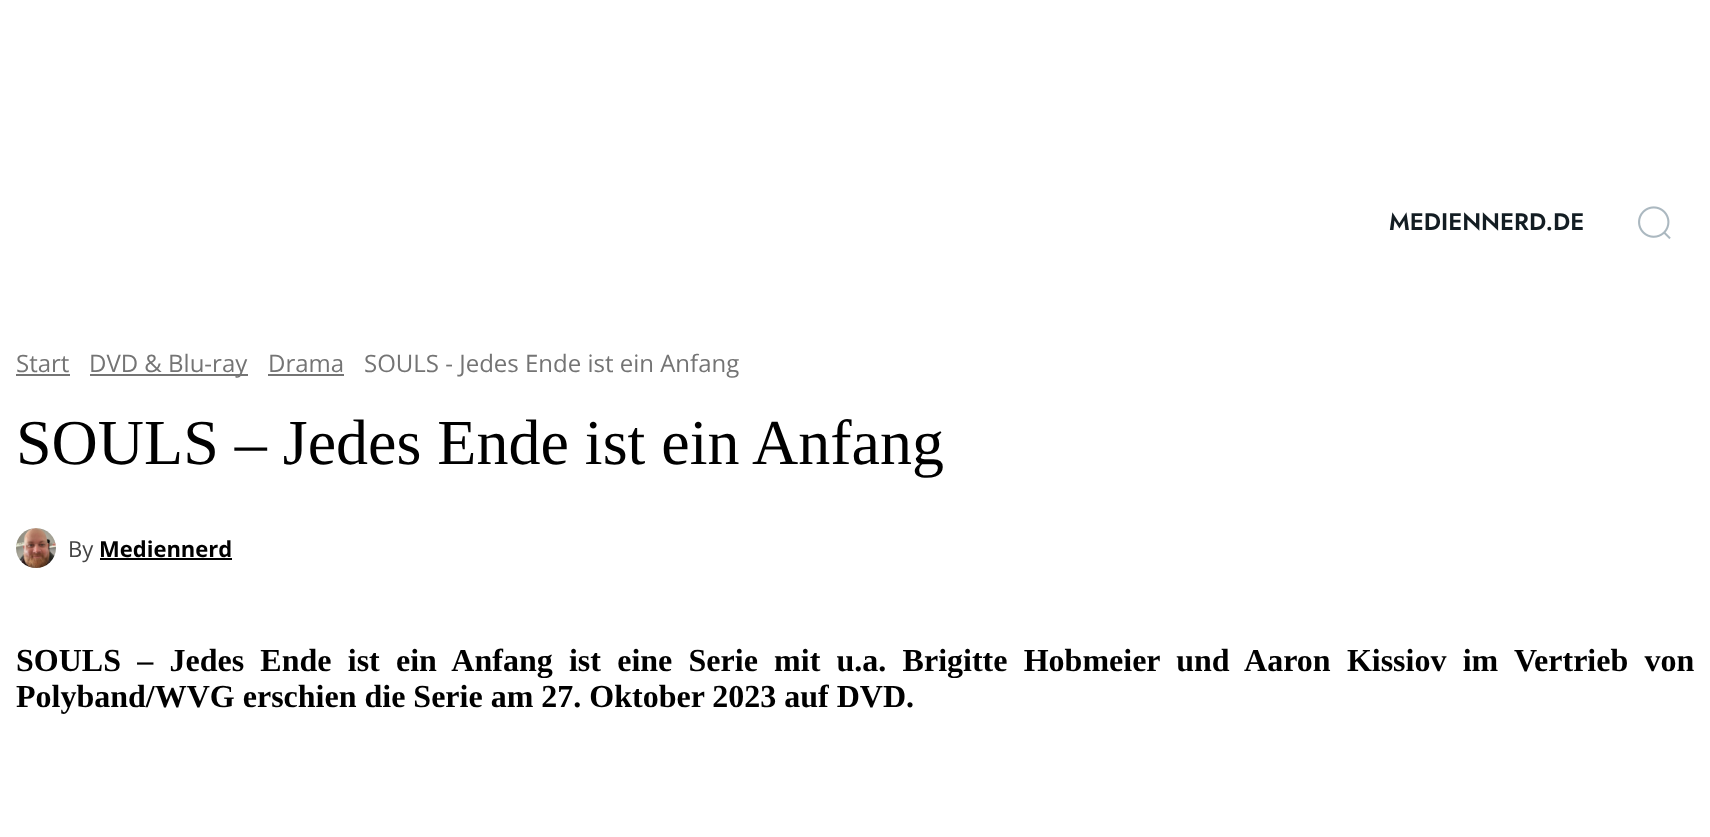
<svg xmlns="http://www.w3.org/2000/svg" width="1710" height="837">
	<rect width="100%" height="100%" fill="#FFFFFF" />
	<text x="1389" y="230" font-family="Jost" font-size="24" font-weight="600" fill="#131D23">MEDIENNERD.DE</text>
	<image x="1638" y="206" width="33" height="33" href="assets/img1.png" />
	<text x="16" y="372" font-family="Open Sans" font-size="24" fill="#747474">Start</text>
	<rect x="16" y="374" width="54" height="2" fill="#747474" />
	<rect x="90" y="374" width="158" height="2" fill="#747474" />
	<g font-family="Open Sans" font-size="24" fill="#747474">
		<text x="89" y="372">DVD &amp; Blu-ray</text>
		<text x="268" y="372">Drama</text>
	</g>
	<rect x="268" y="374" width="76" height="2" fill="#747474" />
	<text x="364" y="372" font-family="Open Sans" font-size="24" fill="#747474">SOULS - Jedes Ende ist ein Anfang</text>
	<text x="16" y="464" font-family="Liberation Serif" font-size="64" fill="#000000">SOULS – Jedes Ende ist ein Anfang</text>
	<image x="16" y="528" width="40" height="40" href="assets/img2.png" />
	<text x="68" y="557" font-family="Open Sans" font-size="22" fill="#444444">By</text>
	<text x="99" y="557" font-family="Open Sans" font-size="22" font-weight="700" fill="#000000">Mediennerd</text>
	<rect x="100" y="558" width="132" height="2" fill="#000000" />
	<g font-family="Liberation Serif" font-size="32" font-weight="700" fill="#000000">
		<text x="16" y="671" word-spacing="8.25">SOULS – Jedes Ende ist ein Anfang ist eine Serie mit u.a. Brigitte Hobmeier und Aaron Kissiov im Vertrieb von</text>
		<text x="16" y="707">Polyband/WVG erschien die Serie am 27. Oktober 2023 auf DVD.</text>
	</g>
</svg>
